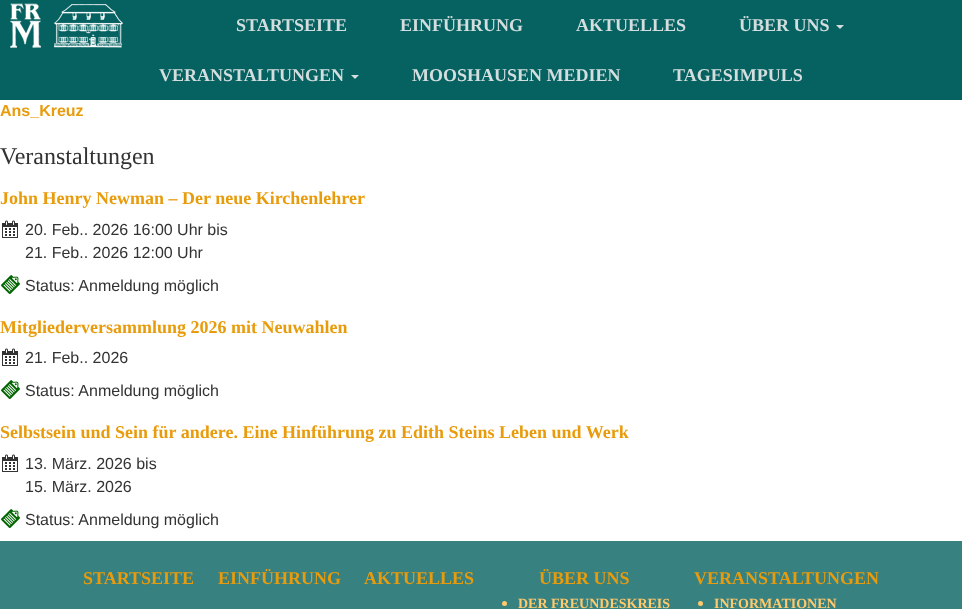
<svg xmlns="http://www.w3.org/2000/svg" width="962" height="609">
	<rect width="100%" height="100%" fill="#FFFFFF" />
	<rect x="0" y="0" width="962" height="100" fill="#066161" />
	<image x="10" y="3" width="113" height="45" href="assets/img1.png" />
	<g font-family="Liberation Serif" font-size="18" font-weight="700" fill="#D4DEDE">
		<text x="236" y="31">STARTSEITE</text>
		<text x="400" y="31">EINFÜHRUNG</text>
		<text x="576" y="31">AKTUELLES</text>
		<text x="739" y="31">ÜBER UNS</text>
	</g>
	<path d="M836 25H844L840 29Z" fill="#D4DEDE" />
	<text x="159" y="81" font-family="Liberation Serif" font-size="18" font-weight="700" fill="#D4DEDE">VERANSTALTUNGEN</text>
	<path d="M351 75H359L355 79Z" fill="#D4DEDE" />
	<g font-family="Liberation Serif" font-size="18" font-weight="700" fill="#D4DEDE">
		<text x="412" y="81">MOOSHAUSEN MEDIEN</text>
		<text x="673" y="81">TAGESIMPULS</text>
	</g>
	<text x="0" y="116" font-family="Liberation Sans" font-size="16" font-weight="700" fill="#E89C0C">Ans_Kreuz</text>
	<text x="0" y="164" font-family="Liberation Serif" font-size="24" fill="#333333">Veranstaltungen</text>
	<text x="0" y="204" font-family="Liberation Serif" font-size="18" font-weight="700" fill="#E89C0C">John Henry Newman – Der neue Kirchenlehrer</text>
	<image x="2" y="220" width="16" height="18" href="assets/img2.png" />
	<g font-family="Liberation Sans" font-size="16" fill="#333333">
		<text x="25" y="235">20. Feb.. 2026 16:00 Uhr bis</text>
		<text x="25" y="258">21. Feb.. 2026 12:00 Uhr</text>
	</g>
	<image x="1" y="275" width="19" height="19" href="assets/img3.png" />
	<text x="25" y="291" font-family="Liberation Sans" font-size="16" fill="#333333">Status: Anmeldung möglich</text>
	<text x="0" y="333" font-family="Liberation Serif" font-size="18" font-weight="700" fill="#E89C0C">Mitgliederversammlung 2026 mit Neuwahlen</text>
	<image x="2" y="348" width="16" height="18" href="assets/img2.png" />
	<text x="25" y="363" font-family="Liberation Sans" font-size="16" fill="#333333">21. Feb.. 2026</text>
	<image x="1" y="380" width="19" height="19" href="assets/img3.png" />
	<text x="25" y="396" font-family="Liberation Sans" font-size="16" fill="#333333">Status: Anmeldung möglich</text>
	<text x="0" y="438" font-family="Liberation Serif" font-size="18" font-weight="700" fill="#E89C0C">Selbstsein und Sein für andere. Eine Hinführung zu Edith Steins Leben und Werk</text>
	<image x="2" y="454" width="16" height="18" href="assets/img2.png" />
	<g font-family="Liberation Sans" font-size="16" fill="#333333">
		<text x="25" y="469">13. März. 2026 bis</text>
		<text x="25" y="492">15. März. 2026</text>
	</g>
	<image x="1" y="509" width="19" height="19" href="assets/img3.png" />
	<text x="25" y="525" font-family="Liberation Sans" font-size="16" fill="#333333">Status: Anmeldung möglich</text>
	<rect x="0" y="541" width="962" height="68" fill="#388181" />
	<g font-family="Liberation Serif" font-size="18" font-weight="700" fill="#E89C0C">
		<text x="83" y="584">STARTSEITE</text>
		<text x="218" y="584">EINFÜHRUNG</text>
		<text x="364" y="584">AKTUELLES</text>
		<text x="539" y="584">ÜBER UNS</text>
	</g>
	<circle cx="504.5" cy="603.5" r="2.5" fill="#FFC96C" />
	<text x="518" y="608" font-family="Liberation Serif" font-size="14" font-weight="700" fill="#FFC96C">DER FREUNDESKREIS</text>
	<text x="694" y="584" font-family="Liberation Serif" font-size="18" font-weight="700" fill="#E89C0C">VERANSTALTUNGEN</text>
	<circle cx="700.5" cy="603.5" r="2.5" fill="#FFC96C" />
	<text x="714" y="608" font-family="Liberation Serif" font-size="14" font-weight="700" fill="#FFC96C">INFORMATIONEN</text>
</svg>
